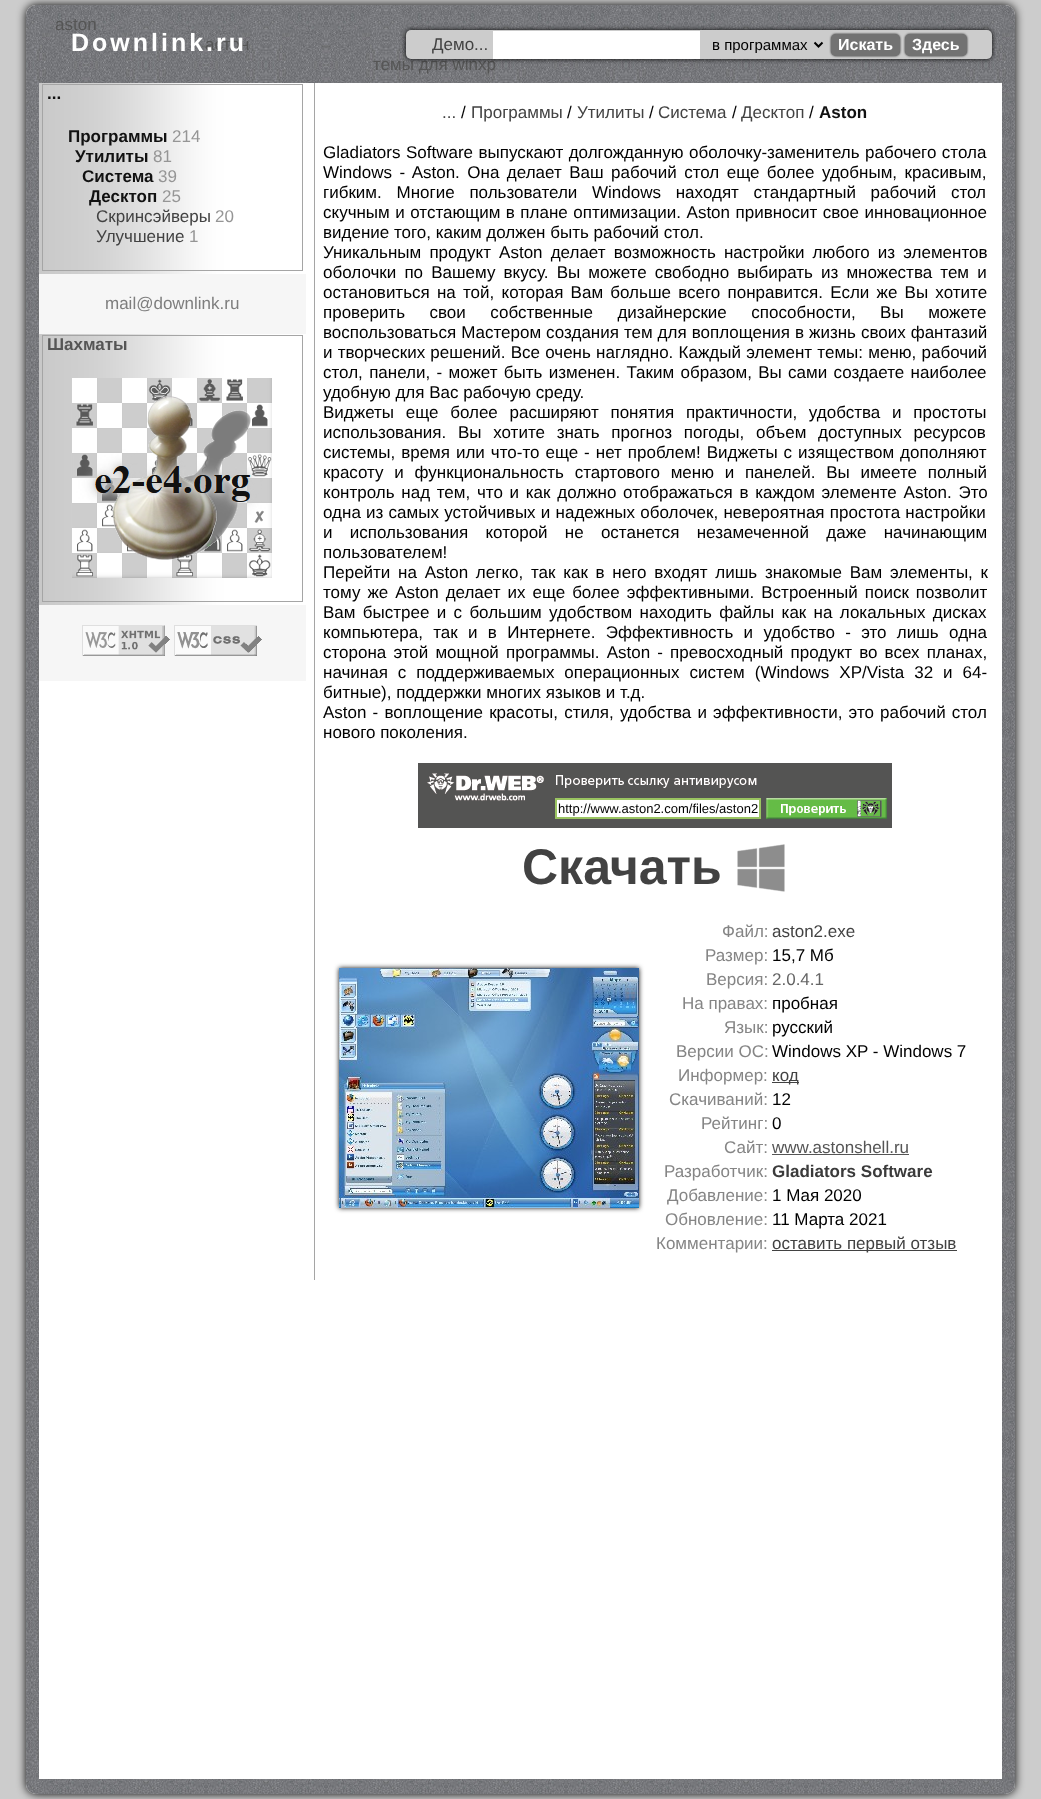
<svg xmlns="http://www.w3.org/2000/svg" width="1041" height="1799">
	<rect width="100%" height="100%" fill="#CCCCCC" />
	<rect x="26" y="5" width="989" height="1789" rx="10" fill="#000000" filter="blur(5px)" />
	<rect x="26" y="5" width="989" height="1789" rx="10" fill="#FFFFFF" />
	<image x="26" y="5" width="989" height="1789" href="assets/img1.png" />
	<g font-family="Liberation Sans" font-size="17" fill="#555555">
		<text x="55" y="30">aston</text>
		<text x="205" y="50">астон</text>
		<text x="373" y="70">темы для winxp</text>
	</g>
	<text x="71" y="51" font-family="Liberation Sans" font-size="25" font-weight="700" letter-spacing="3" fill="#FFFFFF">Downlink.ru</text>
	<rect x="406" y="30" width="586" height="29" rx="5" fill="#000000" filter="blur(2.5px)" />
	<rect x="406" y="30" width="586" height="29" rx="5" fill="#CCCCCC" />
	<text x="432" y="50" font-family="Liberation Sans" font-size="17" fill="#424242">Демо...</text>
	<rect x="493" y="31" width="207" height="28" fill="#FFFFFF" />
	<path d="M814.5 42.5L818.5 46.5L822.5 42.5" fill="none" stroke="#000000" stroke-width="2" />
	<text x="712" y="50" font-family="Liberation Sans" font-size="15" fill="#000000">в программах</text>
	<rect x="831" y="34" width="69" height="22" rx="5" fill="#252525" filter="blur(1px)" />
	<rect x="831" y="34" width="69" height="22" rx="5" fill="#727272" />
	<text x="838" y="50" font-family="Liberation Sans" font-size="16" font-weight="700" fill="#FFFFFF">Искать</text>
	<rect x="905" y="34" width="62" height="22" rx="5" fill="#252525" filter="blur(1px)" />
	<rect x="905" y="34" width="62" height="22" rx="5" fill="#727272" />
	<text x="912" y="50" font-family="Liberation Sans" font-size="16" font-weight="700" fill="#FFFFFF">Здесь</text>
	<rect x="39" y="83" width="963" height="1696" fill="#FFFFFF" />
	<image x="39" y="83" width="267" height="191" href="assets/img2.png" />
	<rect x="42.5" y="84.5" width="260" height="186" fill="none" stroke="#A5A5A5" />
	<g font-family="Liberation Sans" font-size="17" font-weight="700" fill="#111111">
		<text x="47" y="99">...</text>
		<text x="68" y="142">Программы</text>
	</g>
	<text x="172" y="142" font-family="Liberation Sans" font-size="17" fill="#959595">214</text>
	<text x="75" y="162" font-family="Liberation Sans" font-size="17" font-weight="700" fill="#111111">Утилиты</text>
	<text x="153" y="162" font-family="Liberation Sans" font-size="17" fill="#959595">81</text>
	<text x="82" y="182" font-family="Liberation Sans" font-size="17" font-weight="700" fill="#111111">Система</text>
	<text x="158" y="182" font-family="Liberation Sans" font-size="17" fill="#959595">39</text>
	<text x="89" y="202" font-family="Liberation Sans" font-size="17" font-weight="700" fill="#111111">Десктоп</text>
	<text x="162" y="202" font-family="Liberation Sans" font-size="17" fill="#959595">25</text>
	<text x="96" y="222" font-family="Liberation Sans" font-size="17" fill="#424242">Скринсэйверы</text>
	<text x="215" y="222" font-family="Liberation Sans" font-size="17" fill="#959595">20</text>
	<text x="96" y="242" font-family="Liberation Sans" font-size="17" fill="#424242">Улучшение</text>
	<text x="189" y="242" font-family="Liberation Sans" font-size="17" fill="#959595">1</text>
	<rect x="39" y="274" width="267" height="60" fill="#F6F6F6" />
	<text x="105" y="309" font-family="Liberation Sans" font-size="17" fill="#7E7E7E">mail@downlink.ru</text>
	<image x="39" y="334" width="267" height="271" href="assets/img3.png" />
	<rect x="42.5" y="335.5" width="260" height="266" fill="none" stroke="#A5A5A5" />
	<text x="47" y="350" font-family="Liberation Sans" font-size="17" font-weight="700" fill="#555555">Шахматы</text>
	<image x="72" y="378" width="200" height="200" href="assets/img4.png" />
	<rect x="39" y="605" width="267" height="76" fill="#F6F6F6" />
	<image x="82" y="625" width="88" height="31" href="assets/img5.png" />
	<image x="174" y="625" width="88" height="31" href="assets/img6.png" />
	<rect x="314" y="83" width="1" height="1197" fill="#A5A5A5" />
	<text x="442" y="118" font-family="Liberation Sans" font-size="17" fill="#424242">...</text>
	<text x="461" y="118" font-family="Liberation Sans" font-size="17" fill="#000000">/</text>
	<text x="471" y="118" font-family="Liberation Sans" font-size="17" fill="#424242">Программы</text>
	<text x="567" y="118" font-family="Liberation Sans" font-size="17" fill="#000000">/</text>
	<text x="577" y="118" font-family="Liberation Sans" font-size="17" fill="#424242">Утилиты</text>
	<text x="649" y="118" font-family="Liberation Sans" font-size="17" fill="#000000">/</text>
	<text x="658" y="118" font-family="Liberation Sans" font-size="17" fill="#424242">Система</text>
	<text x="732" y="118" font-family="Liberation Sans" font-size="17" fill="#000000">/</text>
	<text x="741" y="118" font-family="Liberation Sans" font-size="17" fill="#424242">Десктоп</text>
	<text x="809" y="118" font-family="Liberation Sans" font-size="17" fill="#000000">/</text>
	<text x="819" y="118" font-family="Liberation Sans" font-size="17" font-weight="700" fill="#111111">Aston</text>
	<g font-family="Liberation Sans" font-size="17" fill="#000000">
		<text x="323" y="158" word-spacing="0.75">Gladiators Software выпускают долгожданную оболочку-заменитель рабочего стола</text>
		<text x="323" y="178" word-spacing="2.75">Windows - Aston. Она делает Ваш рабочий стол еще более удобным, красивым,</text>
		<text x="323" y="198" word-spacing="10">гибким. Многие пользователи Windows находят стандартный рабочий стол</text>
		<text x="323" y="218" word-spacing="0.75">скучным и отстающим в плане оптимизации. Aston привносит свое инновационное</text>
		<text x="323" y="238">видение того, каким должен быть рабочий стол.</text>
		<text x="323" y="258" word-spacing="3.4">Уникальным продукт Aston делает возможность настройки любого из элементов</text>
		<text x="323" y="278" word-spacing="3.4">оболочки по Вашему вкусу. Вы можете свободно выбирать из множества тем и</text>
		<text x="323" y="298" word-spacing="2.5">остановиться на той, которая Вам больше всего понравится. Если же Вы хотите</text>
		<text x="323" y="318" word-spacing="19.75">проверить свои собственные дизайнерские способности, Вы можете</text>
		<text x="323" y="338" word-spacing="0.25">воспользоваться Мастером создания тем для воплощения в жизнь своих фантазий</text>
		<text x="323" y="358" word-spacing="0.5">и творческих решений. Все очень наглядно. Каждый элемент темы: меню, рабочий</text>
		<text x="323" y="378" word-spacing="1.6">стол, панели, - может быть изменен. Таким образом, Вы сами создаете наиболее</text>
		<text x="323" y="398">удобную для Вас рабочую среду.</text>
		<text x="323" y="418" word-spacing="7">Виджеты еще более расширяют понятия практичности, удобства и простоты</text>
		<text x="323" y="438" word-spacing="7">использования. Вы хотите знать прогноз погоды, объем доступных ресурсов</text>
		<text x="323" y="458" word-spacing="1.25">системы, время или что-то еще - нет проблем! Виджеты с изяществом дополняют</text>
		<text x="323" y="478" word-spacing="6">красоту и функциональность стартового меню и панелей. Вы имеете полный</text>
		<text x="323" y="498" word-spacing="2">контроль над тем, что и как должно отображаться в каждом элементе Aston. Это</text>
		<text x="323" y="518" word-spacing="0.5">одна из самых устойчивых и надежных оболочек, невероятная простота настройки</text>
		<text x="323" y="538" word-spacing="12.5">и использования которой не останется незамеченной даже начинающим</text>
		<text x="323" y="558">пользователем!</text>
		<text x="323" y="578" word-spacing="3">Перейти на Aston легко, так как в него входят лишь знакомые Вам элементы, к</text>
		<text x="323" y="598" word-spacing="2.25">тому же Aston делает их еще более эффективными. Встроенный поиск позволит</text>
		<text x="323" y="618" word-spacing="2.6">Вам быстрее и с большим удобством находить файлы как на локальных дисках</text>
		<text x="323" y="638" word-spacing="5.6">компьютера, так и в Интернете. Эффективность и удобство - это лишь одна</text>
		<text x="323" y="658" word-spacing="2.4">сторона этой мощной программы. Aston - превосходный продукт во всех планах,</text>
		<text x="323" y="678" word-spacing="5.25">начиная с поддерживаемых операционных систем (Windows XP/Vista 32 и 64-</text>
		<text x="323" y="698">битные), поддержки многих языков и т.д.</text>
		<text x="323" y="718" word-spacing="1.4">Aston - воплощение красоты, стиля, удобства и эффективности, это рабочий стол</text>
		<text x="323" y="738">нового поколения.</text>
	</g>
	<image x="418" y="763" width="474" height="65" href="assets/img7.png" />
	<rect x="556" y="799" width="204" height="19" fill="#FFFFFF" stroke="#9AC461" stroke-width="2" />
	<text x="558" y="813" font-family="Liberation Sans" font-size="13" fill="#000000">http://www.aston2.com/files/aston2</text>
	<image x="766" y="798" width="121" height="21" href="assets/img8.png" />
	<text x="522" y="884" font-family="Liberation Sans" font-size="50" font-weight="700" fill="#424242">Скачать</text>
	<image x="737" y="844" width="48" height="48" href="assets/img9.png" />
	<rect x="339" y="968" width="300" height="240" fill="#111111" filter="blur(2.5px)" />
	<image x="339" y="968" width="300" height="240" href="assets/img10.png" />
	<text x="722" y="937" font-family="Liberation Sans" font-size="17" fill="#858585">Файл:</text>
	<text x="772" y="937" font-family="Liberation Sans" font-size="17" fill="#424242">aston2.exe</text>
	<text x="705" y="961" font-family="Liberation Sans" font-size="17" fill="#858585">Размер:</text>
	<text x="772" y="961" font-family="Liberation Sans" font-size="17" fill="#000000">15,7 Мб</text>
	<text x="706" y="985" font-family="Liberation Sans" font-size="17" fill="#858585">Версия:</text>
	<text x="772" y="985" font-family="Liberation Sans" font-size="17" fill="#656565">2.0.4.1</text>
	<text x="682" y="1009" font-family="Liberation Sans" font-size="17" fill="#858585">На правах:</text>
	<text x="772" y="1009" font-family="Liberation Sans" font-size="17" fill="#000000">пробная</text>
	<text x="724" y="1033" font-family="Liberation Sans" font-size="17" fill="#858585">Язык:</text>
	<text x="772" y="1033" font-family="Liberation Sans" font-size="17" fill="#000000">русский</text>
	<text x="676" y="1057" font-family="Liberation Sans" font-size="17" fill="#858585">Версии ОС:</text>
	<text x="772" y="1057" font-family="Liberation Sans" font-size="17" fill="#000000">Windows XP - Windows 7</text>
	<text x="678" y="1081" font-family="Liberation Sans" font-size="17" fill="#858585">Информер:</text>
	<rect x="772" y="1082" width="27" height="1" fill="#424242" />
	<text x="772" y="1081" font-family="Liberation Sans" font-size="17" fill="#424242">код</text>
	<text x="669" y="1105" font-family="Liberation Sans" font-size="17" fill="#858585">Скачиваний:</text>
	<text x="772" y="1105" font-family="Liberation Sans" font-size="17" fill="#000000">12</text>
	<text x="701" y="1129" font-family="Liberation Sans" font-size="17" fill="#858585">Рейтинг:</text>
	<text x="772" y="1129" font-family="Liberation Sans" font-size="17" fill="#000000">0</text>
	<text x="724" y="1153" font-family="Liberation Sans" font-size="17" fill="#858585">Сайт:</text>
	<text x="772" y="1153" font-family="Liberation Sans" font-size="17" fill="#555555">www.astonshell.ru</text>
	<rect x="772" y="1154" width="137" height="1" fill="#555555" />
	<text x="664" y="1177" font-family="Liberation Sans" font-size="17" fill="#858585">Разработчик:</text>
	<text x="772" y="1177" font-family="Liberation Sans" font-size="17" font-weight="700" fill="#3B3B3B">Gladiators Software</text>
	<text x="667" y="1201" font-family="Liberation Sans" font-size="17" fill="#858585">Добавление:</text>
	<text x="772" y="1201" font-family="Liberation Sans" font-size="17" fill="#000000">1 Мая 2020</text>
	<text x="665" y="1225" font-family="Liberation Sans" font-size="17" fill="#858585">Обновление:</text>
	<text x="772" y="1225" font-family="Liberation Sans" font-size="17" fill="#000000">11 Марта 2021</text>
	<text x="656" y="1249" font-family="Liberation Sans" font-size="17" fill="#858585">Комментарии:</text>
	<rect x="772" y="1250" width="185" height="1" fill="#424242" />
	<text x="772" y="1249" font-family="Liberation Sans" font-size="17" fill="#424242">оставить первый отзыв</text>
</svg>
